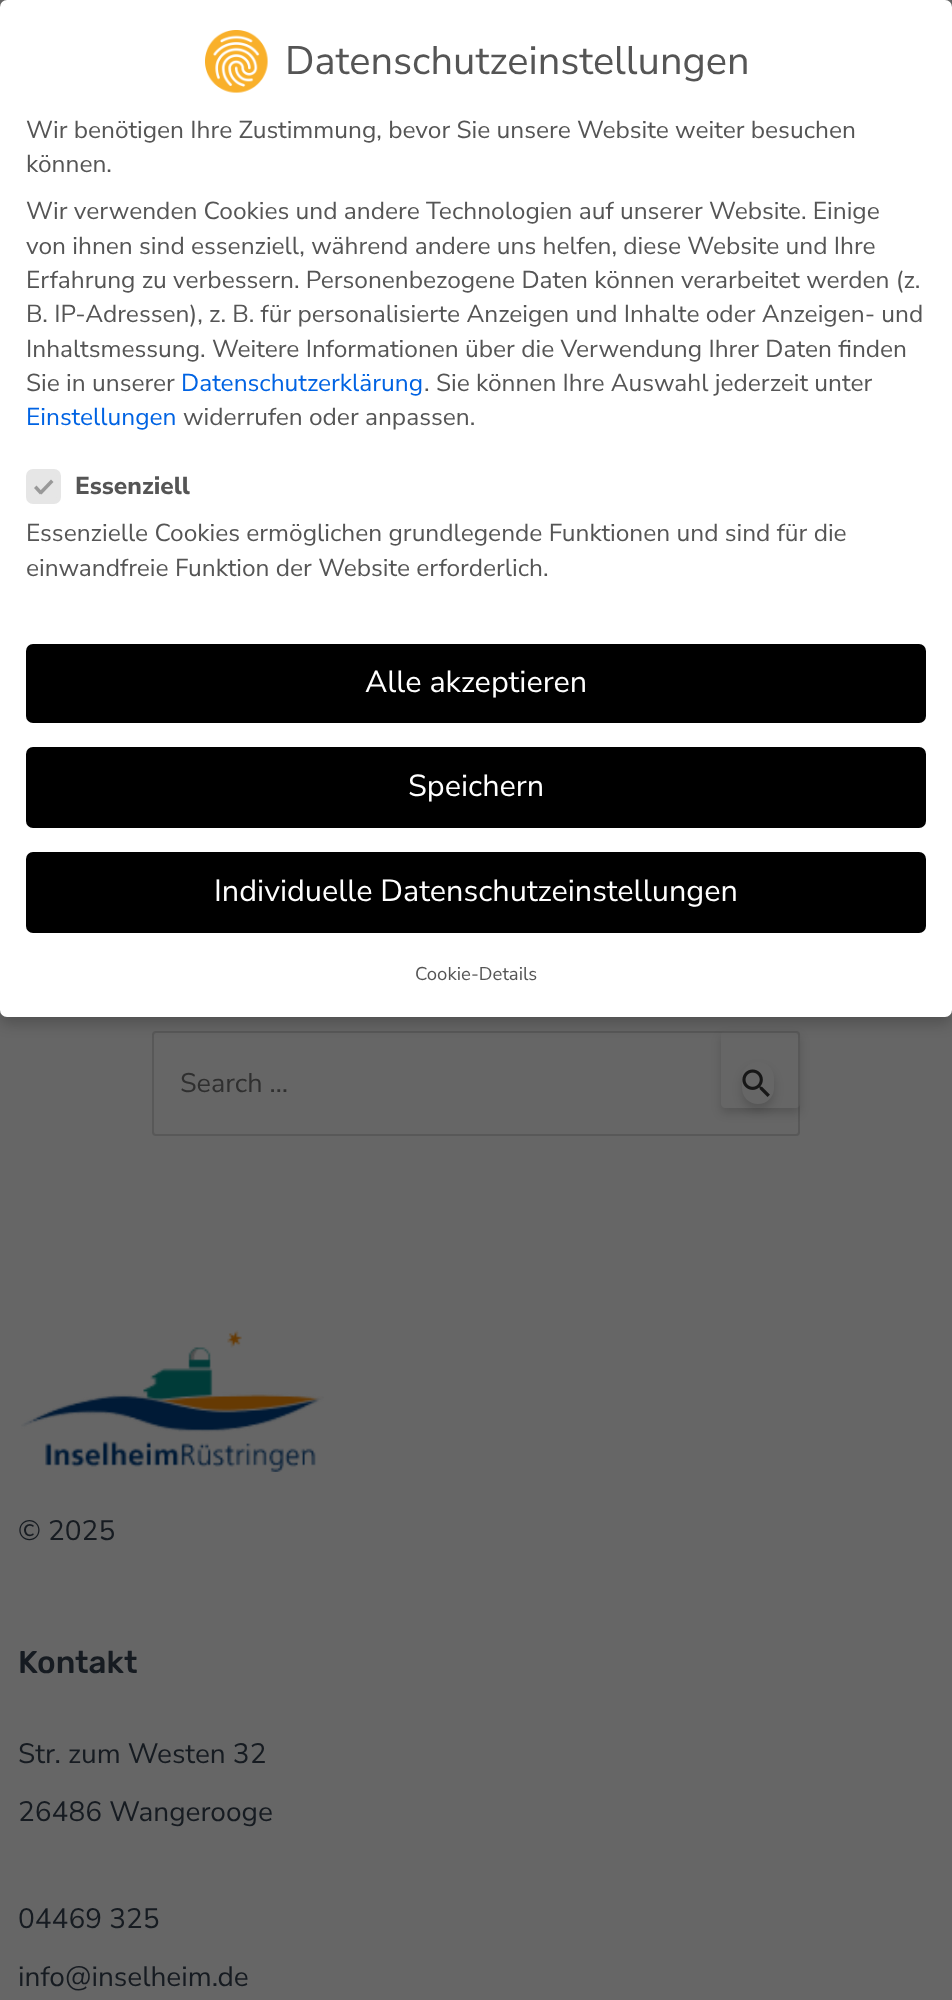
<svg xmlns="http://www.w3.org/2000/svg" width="952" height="2000">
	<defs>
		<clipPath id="clip1"><path d="M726 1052H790V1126H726ZM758 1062C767 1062 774 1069 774 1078V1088C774 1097 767 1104 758 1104C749 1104 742 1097 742 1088V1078C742 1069 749 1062 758 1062Z" clip-rule="evenodd" /></clipPath>
		<clipPath id="clip2"><path d="M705 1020H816V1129H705ZM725 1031H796C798 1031 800 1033 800 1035V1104C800 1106 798 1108 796 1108H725C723 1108 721 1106 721 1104V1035C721 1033 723 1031 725 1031Z" clip-rule="evenodd" /></clipPath>
	</defs>
	<rect width="100%" height="100%" fill="#666666" />
	<rect x="153" y="1032" width="646" height="103" rx="3" fill="none" stroke="#585858" stroke-width="2" />
	<rect x="0" y="7" width="952" height="1017" rx="7" fill="#000000" fill-opacity="0.2" filter="blur(7px)" />
	<rect x="0" y="0" width="952" height="1017" rx="7" fill="#FFFFFF" />
	<image x="205" y="30" width="63" height="63" href="assets/img1.png" />
	<text x="285" y="74" font-family="Nunito Sans" font-size="39.75" fill="#555555">Datenschutzeinstellungen</text>
	<g font-family="Nunito Sans" font-size="24.5" fill="#555555">
		<text x="26" y="138">Wir benötigen Ihre Zustimmung, bevor Sie unsere Website weiter besuchen</text>
		<text x="26" y="172">können.</text>
		<text x="26" y="219">Wir verwenden Cookies und andere Technologien auf unserer Website. Einige</text>
		<text x="26" y="254">von ihnen sind essenziell, während andere uns helfen, diese Website und Ihre</text>
		<text x="26" y="288">Erfahrung zu verbessern. Personenbezogene Daten können verarbeitet werden (z.</text>
		<text x="26" y="322">B. IP-Adressen), z. B. für personalisierte Anzeigen und Inhalte oder Anzeigen- und</text>
		<text x="26" y="357">Inhaltsmessung. Weitere Informationen über die Verwendung Ihrer Daten finden</text>
		<text x="26" y="391">Sie in unserer</text>
	</g>
	<text x="181" y="391" font-family="Nunito Sans" font-size="24.5" fill="#0063E3">Datenschutzerklärung</text>
	<text x="424" y="391" font-family="Nunito Sans" font-size="24.5" fill="#555555">. Sie können Ihre Auswahl jederzeit unter</text>
	<text x="26" y="425" font-family="Nunito Sans" font-size="24.5" fill="#0063E3">Einstellungen</text>
	<text x="183" y="425" font-family="Nunito Sans" font-size="24.5" fill="#555555">widerrufen oder anpassen.</text>
	<rect x="28" y="471" width="31" height="31" rx="5" fill="#E6E6E6" stroke="#E6E6E6" stroke-width="4" />
	<path d="M51 479.5L53.5 482L41.5 494.5L39 492Z" fill="#999999" />
	<path d="M36.5 485.5L42.5 492L40 494.5L34 488Z" fill="#999999" />
	<text x="75" y="494" font-family="Nunito Sans" font-size="24.5" font-weight="800" fill="#555555">Essenziell</text>
	<g font-family="Nunito Sans" font-size="24.5" fill="#555555">
		<text x="26" y="541">Essenzielle Cookies ermöglichen grundlegende Funktionen und sind für die</text>
		<text x="26" y="576">einwandfreie Funktion der Website erforderlich.</text>
	</g>
	<rect x="26" y="644" width="900" height="79" rx="7" fill="#000000" />
	<text x="365" y="692" font-family="Nunito Sans" font-size="30.6" fill="#FFFFFF">Alle akzeptieren</text>
	<rect x="26" y="747" width="900" height="81" rx="7" fill="#000000" />
	<text x="408" y="796" font-family="Nunito Sans" font-size="30.6" fill="#FFFFFF">Speichern</text>
	<rect x="26" y="852" width="900" height="81" rx="7" fill="#000000" />
	<text x="214" y="901" font-family="Nunito Sans" font-size="30.6" fill="#FFFFFF">Individuelle Datenschutzeinstellungen</text>
	<text x="415" y="980" font-family="Nunito Sans" font-size="18.5" fill="#555555">Cookie-Details</text>
	<text x="180" y="1092" font-family="Nunito Sans" font-size="27" fill="#2F2F2F">Search …</text>
	<g clip-path="url(#clip1)">
		<rect x="742" y="1068" width="32" height="42" rx="16" fill="#000000" fill-opacity="0.16" filter="blur(5px)" />
	</g>
	<image x="742" y="1069" width="28" height="28" href="assets/img2.png" />
	<g clip-path="url(#clip2)">
		<rect x="721" y="1036" width="79" height="77" rx="4" fill="#000000" fill-opacity="0.16" filter="blur(5px)" />
	</g>
	<image x="21" y="1330" width="303" height="142" href="assets/img3.png" />
	<text x="18" y="1540" font-family="Nunito Sans" font-size="28" fill="#161B21">© 2025</text>
	<text x="18" y="1673" font-family="Rubik" font-size="31.5" font-weight="500" fill="#161B21">Kontakt</text>
	<g font-family="Nunito Sans" font-size="28" fill="#161B21">
		<text x="18" y="1763">Str. zum Westen 32</text>
		<text x="18" y="1821">26486 Wangerooge</text>
		<text x="18" y="1928">04469 325</text>
		<text x="18" y="1986">info@inselheim.de</text>
	</g>
</svg>
